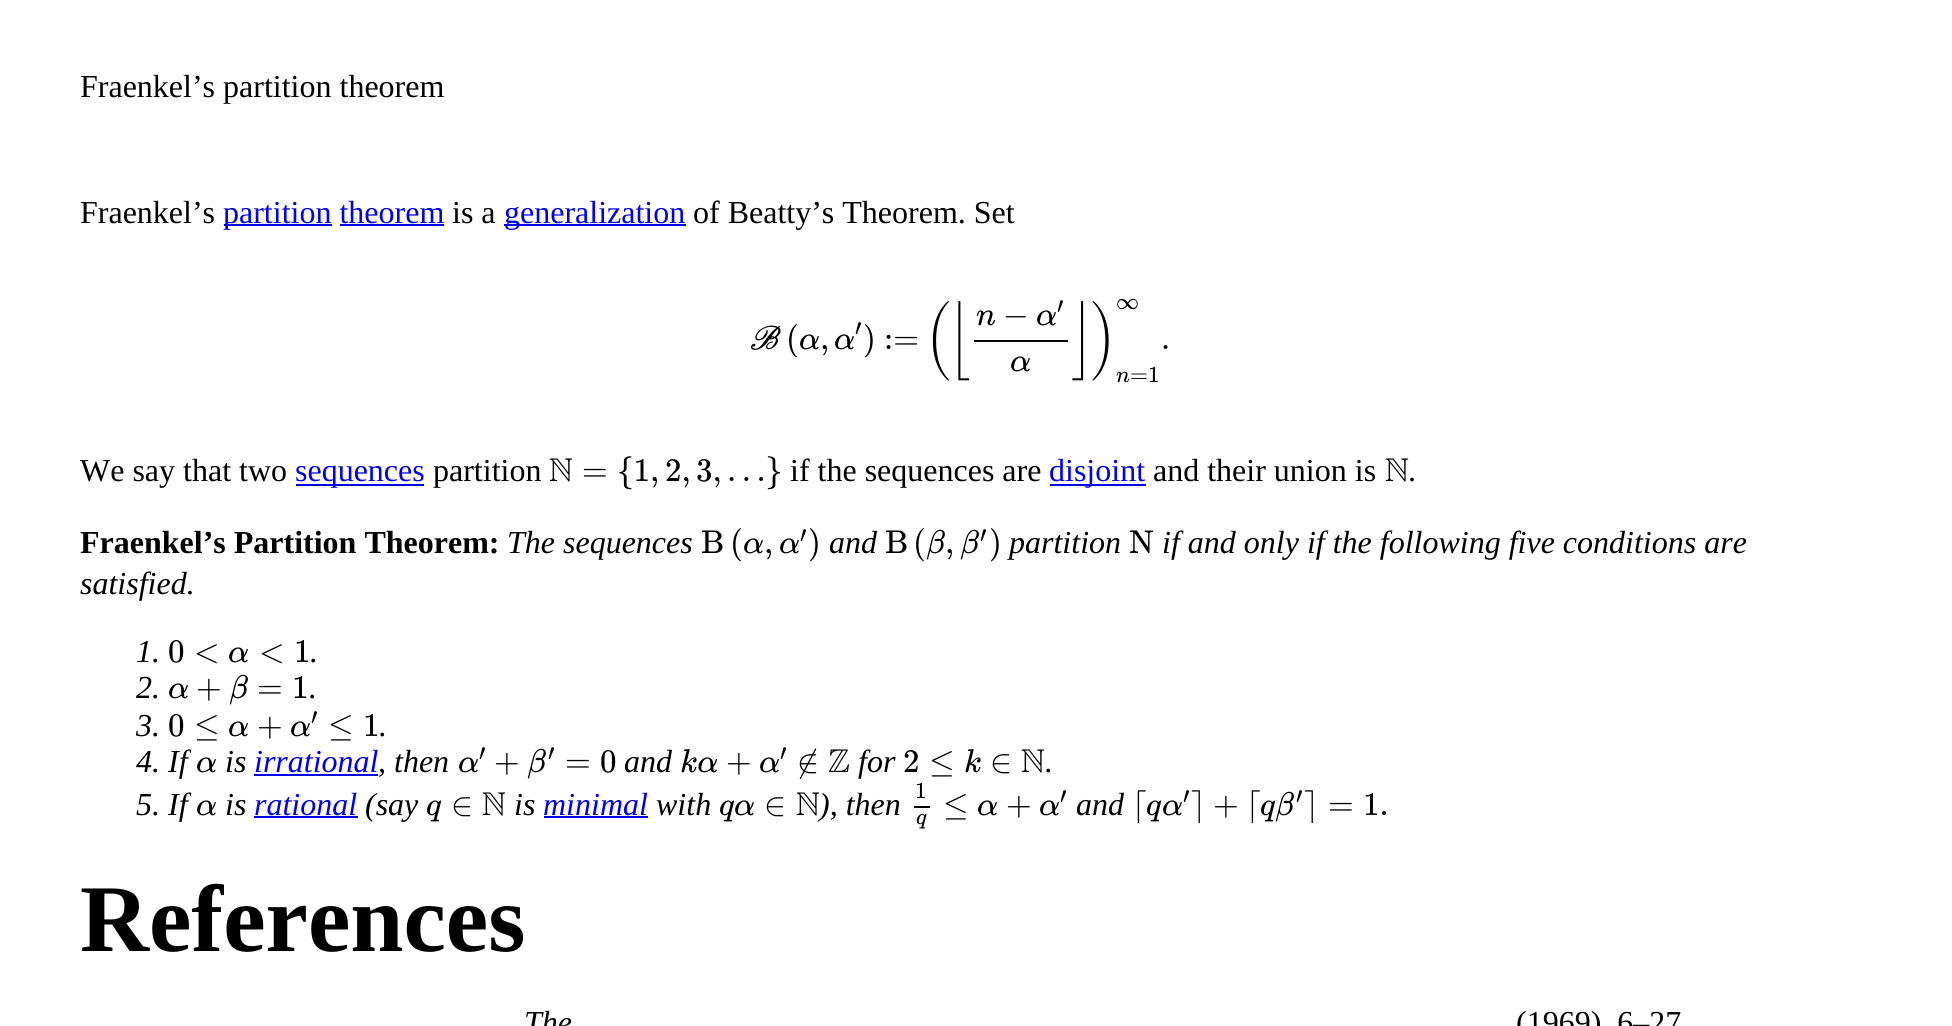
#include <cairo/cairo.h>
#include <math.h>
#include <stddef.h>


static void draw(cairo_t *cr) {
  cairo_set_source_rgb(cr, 1, 1, 1);
  cairo_paint(cr);
  cairo_set_source_rgb(cr, 0, 0, 238 / 255.0);
  cairo_rectangle(cr, 224, 224, 108, 2);
  cairo_fill(cr);
  cairo_rectangle(cr, 504, 224, 182, 2);
  cairo_fill(cr);
  cairo_rectangle(cr, 340, 224, 104, 2);
  cairo_fill(cr);
  cairo_set_source_rgb(cr, 0, 0, 0);
  cairo_rectangle(cr, 974, 340, 94, 2);
  cairo_fill(cr);
  cairo_set_source_rgb(cr, 0, 0, 238 / 255.0);
  cairo_rectangle(cr, 296, 484, 128, 2);
  cairo_fill(cr);
  cairo_rectangle(cr, 1050, 484, 96, 2);
  cairo_fill(cr);
  cairo_rectangle(cr, 254, 774, 124, 2);
  cairo_fill(cr);
  cairo_rectangle(cr, 254, 816, 104, 2);
  cairo_fill(cr);
  cairo_rectangle(cr, 544, 816, 104, 2);
  cairo_fill(cr);
  cairo_set_source_rgb(cr, 0, 0, 0);
  cairo_rectangle(cr, 914, 806, 16, 2);
  cairo_fill(cr);
  cairo_select_font_face(cr, "Liberation Serif", CAIRO_FONT_SLANT_NORMAL, CAIRO_FONT_WEIGHT_NORMAL);
  cairo_set_font_size(cr, 32);
  cairo_move_to(cr, 80, 97);
  cairo_show_text(cr, "Fraenkel’s partition theorem");
  cairo_move_to(cr, 80, 223);
  cairo_show_text(cr, "Fraenkel’s");
  cairo_set_source_rgb(cr, 0, 0, 238 / 255.0);
  cairo_move_to(cr, 223, 223);
  cairo_show_text(cr, "partition theorem");
  cairo_set_source_rgb(cr, 0, 0, 0);
  cairo_move_to(cr, 452, 223);
  cairo_show_text(cr, "is a");
  cairo_set_source_rgb(cr, 0, 0, 238 / 255.0);
  cairo_move_to(cr, 504, 223);
  cairo_show_text(cr, "generalization");
  cairo_set_source_rgb(cr, 0, 0, 0);
  cairo_move_to(cr, 693, 223);
  cairo_show_text(cr, "of Beatty’s Theorem. Set");
  cairo_select_font_face(cr, "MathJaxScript", CAIRO_FONT_SLANT_NORMAL, CAIRO_FONT_WEIGHT_NORMAL);
  cairo_set_font_size(cr, 33);
  cairo_move_to(cr, 750, 349);
  cairo_show_text(cr, "B");
  cairo_select_font_face(cr, "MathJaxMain", CAIRO_FONT_SLANT_NORMAL, CAIRO_FONT_WEIGHT_NORMAL);
  cairo_move_to(cr, 786, 349);
  cairo_show_text(cr, "(");
  cairo_select_font_face(cr, "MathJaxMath", CAIRO_FONT_SLANT_ITALIC, CAIRO_FONT_WEIGHT_NORMAL);
  cairo_move_to(cr, 799, 349);
  cairo_show_text(cr, "α");
  cairo_select_font_face(cr, "MathJaxMain", CAIRO_FONT_SLANT_NORMAL, CAIRO_FONT_WEIGHT_NORMAL);
  cairo_move_to(cr, 820, 349);
  cairo_show_text(cr, ",");
  cairo_set_font_size(cr, 23);
  cairo_move_to(cr, 855, 335);
  cairo_show_text(cr, "′");
  cairo_select_font_face(cr, "MathJaxMath", CAIRO_FONT_SLANT_ITALIC, CAIRO_FONT_WEIGHT_NORMAL);
  cairo_set_font_size(cr, 33);
  cairo_move_to(cr, 834, 349);
  cairo_show_text(cr, "α");
  cairo_select_font_face(cr, "MathJaxMain", CAIRO_FONT_SLANT_NORMAL, CAIRO_FONT_WEIGHT_NORMAL);
  cairo_move_to(cr, 863, 349);
  cairo_show_text(cr, ")");
  cairo_move_to(cr, 884, 349);
  cairo_show_text(cr, ":=");
  cairo_select_font_face(cr, "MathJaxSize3", CAIRO_FONT_SLANT_NORMAL, CAIRO_FONT_WEIGHT_NORMAL);
  cairo_move_to(cr, 926, 349);
  cairo_show_text(cr, "(⌊");
  cairo_select_font_face(cr, "MathJaxMath", CAIRO_FONT_SLANT_ITALIC, CAIRO_FONT_WEIGHT_NORMAL);
  cairo_move_to(cr, 976, 325);
  cairo_show_text(cr, "n");
  cairo_select_font_face(cr, "MathJaxMain", CAIRO_FONT_SLANT_NORMAL, CAIRO_FONT_WEIGHT_NORMAL);
  cairo_move_to(cr, 1003, 325);
  cairo_show_text(cr, "−");
  cairo_set_font_size(cr, 23);
  cairo_move_to(cr, 1057, 313);
  cairo_show_text(cr, "′");
  cairo_select_font_face(cr, "MathJaxMath", CAIRO_FONT_SLANT_ITALIC, CAIRO_FONT_WEIGHT_NORMAL);
  cairo_set_font_size(cr, 33);
  cairo_move_to(cr, 1036, 325);
  cairo_show_text(cr, "α");
  cairo_move_to(cr, 1010, 371);
  cairo_show_text(cr, "α");
  cairo_select_font_face(cr, "MathJaxSize3", CAIRO_FONT_SLANT_NORMAL, CAIRO_FONT_WEIGHT_NORMAL);
  cairo_move_to(cr, 1072, 349);
  cairo_show_text(cr, "⌋)");
  cairo_select_font_face(cr, "MathJaxMain", CAIRO_FONT_SLANT_NORMAL, CAIRO_FONT_WEIGHT_NORMAL);
  cairo_set_font_size(cr, 23);
  cairo_move_to(cr, 1116, 309);
  cairo_show_text(cr, "∞");
  cairo_select_font_face(cr, "MathJaxMath", CAIRO_FONT_SLANT_ITALIC, CAIRO_FONT_WEIGHT_NORMAL);
  cairo_move_to(cr, 1116, 382);
  cairo_show_text(cr, "n");
  cairo_select_font_face(cr, "MathJaxMain", CAIRO_FONT_SLANT_NORMAL, CAIRO_FONT_WEIGHT_NORMAL);
  cairo_move_to(cr, 1130, 382);
  cairo_show_text(cr, "=1");
  cairo_set_font_size(cr, 33);
  cairo_move_to(cr, 1161, 349);
  cairo_show_text(cr, ".");
  cairo_select_font_face(cr, "Liberation Serif", CAIRO_FONT_SLANT_NORMAL, CAIRO_FONT_WEIGHT_NORMAL);
  cairo_set_font_size(cr, 32);
  cairo_move_to(cr, 80, 481);
  cairo_show_text(cr, "We say that two");
  cairo_set_source_rgb(cr, 0, 0, 238 / 255.0);
  cairo_move_to(cr, 295, 481);
  cairo_show_text(cr, "sequences");
  cairo_set_source_rgb(cr, 0, 0, 0);
  cairo_move_to(cr, 433, 481);
  cairo_show_text(cr, "partition");
  cairo_select_font_face(cr, "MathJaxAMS", CAIRO_FONT_SLANT_NORMAL, CAIRO_FONT_WEIGHT_NORMAL);
  cairo_set_font_size(cr, 33);
  cairo_move_to(cr, 549, 481);
  cairo_show_text(cr, "N");
  cairo_select_font_face(cr, "MathJaxMain", CAIRO_FONT_SLANT_NORMAL, CAIRO_FONT_WEIGHT_NORMAL);
  cairo_move_to(cr, 582, 481);
  cairo_show_text(cr, "=");
  cairo_move_to(cr, 617, 481);
  cairo_show_text(cr, "{1,");
  cairo_move_to(cr, 665, 481);
  cairo_show_text(cr, "2,");
  cairo_move_to(cr, 696, 481);
  cairo_show_text(cr, "3,");
  cairo_move_to(cr, 727, 481);
  cairo_show_text(cr, "…}");
  cairo_select_font_face(cr, "Liberation Serif", CAIRO_FONT_SLANT_NORMAL, CAIRO_FONT_WEIGHT_NORMAL);
  cairo_set_font_size(cr, 32);
  cairo_move_to(cr, 790, 481);
  cairo_show_text(cr, "if the sequences are");
  cairo_set_source_rgb(cr, 0, 0, 238 / 255.0);
  cairo_move_to(cr, 1049, 481);
  cairo_show_text(cr, "disjoint");
  cairo_set_source_rgb(cr, 0, 0, 0);
  cairo_move_to(cr, 1153, 481);
  cairo_show_text(cr, "and their union is");
  cairo_select_font_face(cr, "MathJaxAMS", CAIRO_FONT_SLANT_NORMAL, CAIRO_FONT_WEIGHT_NORMAL);
  cairo_set_font_size(cr, 33);
  cairo_move_to(cr, 1385, 481);
  cairo_show_text(cr, "N");
  cairo_select_font_face(cr, "Liberation Serif", CAIRO_FONT_SLANT_NORMAL, CAIRO_FONT_WEIGHT_NORMAL);
  cairo_set_font_size(cr, 32);
  cairo_move_to(cr, 1408, 481);
  cairo_show_text(cr, ".");
  cairo_select_font_face(cr, "Liberation Serif", CAIRO_FONT_SLANT_ITALIC, CAIRO_FONT_WEIGHT_NORMAL);
  cairo_move_to(cr, 507, 553);
  cairo_show_text(cr, "The sequences");
  cairo_select_font_face(cr, "MathJaxMain", CAIRO_FONT_SLANT_NORMAL, CAIRO_FONT_WEIGHT_NORMAL);
  cairo_set_font_size(cr, 33);
  cairo_move_to(cr, 701, 553);
  cairo_show_text(cr, "B");
  cairo_move_to(cr, 730, 553);
  cairo_show_text(cr, "(");
  cairo_select_font_face(cr, "MathJaxMath", CAIRO_FONT_SLANT_ITALIC, CAIRO_FONT_WEIGHT_NORMAL);
  cairo_move_to(cr, 743, 553);
  cairo_show_text(cr, "α");
  cairo_select_font_face(cr, "MathJaxMain", CAIRO_FONT_SLANT_NORMAL, CAIRO_FONT_WEIGHT_NORMAL);
  cairo_move_to(cr, 764, 553);
  cairo_show_text(cr, ",");
  cairo_set_font_size(cr, 23);
  cairo_move_to(cr, 800, 542);
  cairo_show_text(cr, "′");
  cairo_select_font_face(cr, "MathJaxMath", CAIRO_FONT_SLANT_ITALIC, CAIRO_FONT_WEIGHT_NORMAL);
  cairo_set_font_size(cr, 33);
  cairo_move_to(cr, 779, 553);
  cairo_show_text(cr, "α");
  cairo_select_font_face(cr, "MathJaxMain", CAIRO_FONT_SLANT_NORMAL, CAIRO_FONT_WEIGHT_NORMAL);
  cairo_move_to(cr, 808, 553);
  cairo_show_text(cr, ")");
  cairo_select_font_face(cr, "Liberation Serif", CAIRO_FONT_SLANT_ITALIC, CAIRO_FONT_WEIGHT_NORMAL);
  cairo_set_font_size(cr, 32);
  cairo_move_to(cr, 829, 553);
  cairo_show_text(cr, "and");
  cairo_select_font_face(cr, "MathJaxMain", CAIRO_FONT_SLANT_NORMAL, CAIRO_FONT_WEIGHT_NORMAL);
  cairo_set_font_size(cr, 33);
  cairo_move_to(cr, 885, 553);
  cairo_show_text(cr, "B");
  cairo_move_to(cr, 913, 553);
  cairo_show_text(cr, "(");
  cairo_select_font_face(cr, "MathJaxMath", CAIRO_FONT_SLANT_ITALIC, CAIRO_FONT_WEIGHT_NORMAL);
  cairo_move_to(cr, 926, 553);
  cairo_show_text(cr, "β");
  cairo_select_font_face(cr, "MathJaxMain", CAIRO_FONT_SLANT_NORMAL, CAIRO_FONT_WEIGHT_NORMAL);
  cairo_move_to(cr, 945, 553);
  cairo_show_text(cr, ",");
  cairo_select_font_face(cr, "MathJaxMath", CAIRO_FONT_SLANT_ITALIC, CAIRO_FONT_WEIGHT_NORMAL);
  cairo_move_to(cr, 960, 553);
  cairo_show_text(cr, "β");
  cairo_select_font_face(cr, "MathJaxMain", CAIRO_FONT_SLANT_NORMAL, CAIRO_FONT_WEIGHT_NORMAL);
  cairo_set_font_size(cr, 23);
  cairo_move_to(cr, 980, 542);
  cairo_show_text(cr, "′");
  cairo_set_font_size(cr, 33);
  cairo_move_to(cr, 989, 553);
  cairo_show_text(cr, ")");
  cairo_select_font_face(cr, "Liberation Serif", CAIRO_FONT_SLANT_ITALIC, CAIRO_FONT_WEIGHT_NORMAL);
  cairo_set_font_size(cr, 32);
  cairo_move_to(cr, 1009, 553);
  cairo_show_text(cr, "partition");
  cairo_select_font_face(cr, "MathJaxMain", CAIRO_FONT_SLANT_NORMAL, CAIRO_FONT_WEIGHT_NORMAL);
  cairo_set_font_size(cr, 33);
  cairo_move_to(cr, 1129, 553);
  cairo_show_text(cr, "N");
  cairo_select_font_face(cr, "Liberation Serif", CAIRO_FONT_SLANT_ITALIC, CAIRO_FONT_WEIGHT_NORMAL);
  cairo_set_font_size(cr, 32);
  cairo_move_to(cr, 1162, 553);
  cairo_show_text(cr, "if and only if the following five conditions are");
  cairo_move_to(cr, 80, 594);
  cairo_show_text(cr, "satisfied.");
  cairo_select_font_face(cr, "Liberation Serif", CAIRO_FONT_SLANT_NORMAL, CAIRO_FONT_WEIGHT_BOLD);
  cairo_move_to(cr, 80, 553);
  cairo_show_text(cr, "Fraenkel’s Partition Theorem:");
  cairo_select_font_face(cr, "Liberation Serif", CAIRO_FONT_SLANT_ITALIC, CAIRO_FONT_WEIGHT_NORMAL);
  cairo_move_to(cr, 136, 662);
  cairo_show_text(cr, "1.");
  cairo_select_font_face(cr, "MathJaxMain", CAIRO_FONT_SLANT_NORMAL, CAIRO_FONT_WEIGHT_NORMAL);
  cairo_set_font_size(cr, 33);
  cairo_move_to(cr, 168, 662);
  cairo_show_text(cr, "0");
  cairo_move_to(cr, 194, 662);
  cairo_show_text(cr, "<");
  cairo_select_font_face(cr, "MathJaxMath", CAIRO_FONT_SLANT_ITALIC, CAIRO_FONT_WEIGHT_NORMAL);
  cairo_move_to(cr, 228, 662);
  cairo_show_text(cr, "α");
  cairo_select_font_face(cr, "MathJaxMain", CAIRO_FONT_SLANT_NORMAL, CAIRO_FONT_WEIGHT_NORMAL);
  cairo_move_to(cr, 259, 662);
  cairo_show_text(cr, "<");
  cairo_move_to(cr, 294, 662);
  cairo_show_text(cr, "1");
  cairo_select_font_face(cr, "Liberation Serif", CAIRO_FONT_SLANT_ITALIC, CAIRO_FONT_WEIGHT_NORMAL);
  cairo_set_font_size(cr, 32);
  cairo_move_to(cr, 310, 662);
  cairo_show_text(cr, ".");
  cairo_move_to(cr, 136, 698);
  cairo_show_text(cr, "2.");
  cairo_select_font_face(cr, "MathJaxMath", CAIRO_FONT_SLANT_ITALIC, CAIRO_FONT_WEIGHT_NORMAL);
  cairo_set_font_size(cr, 33);
  cairo_move_to(cr, 168, 698);
  cairo_show_text(cr, "α");
  cairo_select_font_face(cr, "MathJaxMain", CAIRO_FONT_SLANT_NORMAL, CAIRO_FONT_WEIGHT_NORMAL);
  cairo_move_to(cr, 196, 698);
  cairo_show_text(cr, "+");
  cairo_select_font_face(cr, "MathJaxMath", CAIRO_FONT_SLANT_ITALIC, CAIRO_FONT_WEIGHT_NORMAL);
  cairo_move_to(cr, 229, 698);
  cairo_show_text(cr, "β");
  cairo_select_font_face(cr, "MathJaxMain", CAIRO_FONT_SLANT_NORMAL, CAIRO_FONT_WEIGHT_NORMAL);
  cairo_move_to(cr, 257, 698);
  cairo_show_text(cr, "=");
  cairo_move_to(cr, 292, 698);
  cairo_show_text(cr, "1");
  cairo_select_font_face(cr, "Liberation Serif", CAIRO_FONT_SLANT_ITALIC, CAIRO_FONT_WEIGHT_NORMAL);
  cairo_set_font_size(cr, 32);
  cairo_move_to(cr, 309, 698);
  cairo_show_text(cr, ".");
  cairo_move_to(cr, 136, 736);
  cairo_show_text(cr, "3.");
  cairo_select_font_face(cr, "MathJaxMain", CAIRO_FONT_SLANT_NORMAL, CAIRO_FONT_WEIGHT_NORMAL);
  cairo_set_font_size(cr, 33);
  cairo_move_to(cr, 168, 736);
  cairo_show_text(cr, "0");
  cairo_move_to(cr, 194, 736);
  cairo_show_text(cr, "≤");
  cairo_select_font_face(cr, "MathJaxMath", CAIRO_FONT_SLANT_ITALIC, CAIRO_FONT_WEIGHT_NORMAL);
  cairo_move_to(cr, 228, 736);
  cairo_show_text(cr, "α");
  cairo_select_font_face(cr, "MathJaxMain", CAIRO_FONT_SLANT_NORMAL, CAIRO_FONT_WEIGHT_NORMAL);
  cairo_move_to(cr, 257, 736);
  cairo_show_text(cr, "+");
  cairo_set_font_size(cr, 23);
  cairo_move_to(cr, 311, 724);
  cairo_show_text(cr, "′");
  cairo_select_font_face(cr, "MathJaxMath", CAIRO_FONT_SLANT_ITALIC, CAIRO_FONT_WEIGHT_NORMAL);
  cairo_set_font_size(cr, 33);
  cairo_move_to(cr, 290, 736);
  cairo_show_text(cr, "α");
  cairo_select_font_face(cr, "MathJaxMain", CAIRO_FONT_SLANT_NORMAL, CAIRO_FONT_WEIGHT_NORMAL);
  cairo_move_to(cr, 328, 736);
  cairo_show_text(cr, "≤");
  cairo_move_to(cr, 363, 736);
  cairo_show_text(cr, "1");
  cairo_select_font_face(cr, "Liberation Serif", CAIRO_FONT_SLANT_ITALIC, CAIRO_FONT_WEIGHT_NORMAL);
  cairo_set_font_size(cr, 32);
  cairo_move_to(cr, 379, 736);
  cairo_show_text(cr, ".");
  cairo_move_to(cr, 136, 772);
  cairo_show_text(cr, "4. If");
  cairo_select_font_face(cr, "MathJaxMath", CAIRO_FONT_SLANT_ITALIC, CAIRO_FONT_WEIGHT_NORMAL);
  cairo_set_font_size(cr, 33);
  cairo_move_to(cr, 196, 772);
  cairo_show_text(cr, "α");
  cairo_select_font_face(cr, "Liberation Serif", CAIRO_FONT_SLANT_ITALIC, CAIRO_FONT_WEIGHT_NORMAL);
  cairo_set_font_size(cr, 32);
  cairo_move_to(cr, 225, 772);
  cairo_show_text(cr, "is");
  cairo_set_source_rgb(cr, 0, 0, 238 / 255.0);
  cairo_move_to(cr, 254, 772);
  cairo_show_text(cr, "irrational");
  cairo_set_source_rgb(cr, 0, 0, 0);
  cairo_move_to(cr, 378, 772);
  cairo_show_text(cr, ", then");
  cairo_select_font_face(cr, "MathJaxMain", CAIRO_FONT_SLANT_NORMAL, CAIRO_FONT_WEIGHT_NORMAL);
  cairo_set_font_size(cr, 23);
  cairo_move_to(cr, 479, 760);
  cairo_show_text(cr, "′");
  cairo_select_font_face(cr, "MathJaxMath", CAIRO_FONT_SLANT_ITALIC, CAIRO_FONT_WEIGHT_NORMAL);
  cairo_set_font_size(cr, 33);
  cairo_move_to(cr, 458, 772);
  cairo_show_text(cr, "α");
  cairo_select_font_face(cr, "MathJaxMain", CAIRO_FONT_SLANT_NORMAL, CAIRO_FONT_WEIGHT_NORMAL);
  cairo_move_to(cr, 494, 772);
  cairo_show_text(cr, "+");
  cairo_select_font_face(cr, "MathJaxMath", CAIRO_FONT_SLANT_ITALIC, CAIRO_FONT_WEIGHT_NORMAL);
  cairo_move_to(cr, 527, 772);
  cairo_show_text(cr, "β");
  cairo_select_font_face(cr, "MathJaxMain", CAIRO_FONT_SLANT_NORMAL, CAIRO_FONT_WEIGHT_NORMAL);
  cairo_set_font_size(cr, 23);
  cairo_move_to(cr, 548, 760);
  cairo_show_text(cr, "′");
  cairo_set_font_size(cr, 33);
  cairo_move_to(cr, 565, 772);
  cairo_show_text(cr, "=");
  cairo_move_to(cr, 600, 772);
  cairo_show_text(cr, "0");
  cairo_select_font_face(cr, "Liberation Serif", CAIRO_FONT_SLANT_ITALIC, CAIRO_FONT_WEIGHT_NORMAL);
  cairo_set_font_size(cr, 32);
  cairo_move_to(cr, 624, 772);
  cairo_show_text(cr, "and");
  cairo_select_font_face(cr, "MathJaxMath", CAIRO_FONT_SLANT_ITALIC, CAIRO_FONT_WEIGHT_NORMAL);
  cairo_set_font_size(cr, 33);
  cairo_move_to(cr, 680, 772);
  cairo_show_text(cr, "kα");
  cairo_select_font_face(cr, "MathJaxMain", CAIRO_FONT_SLANT_NORMAL, CAIRO_FONT_WEIGHT_NORMAL);
  cairo_move_to(cr, 726, 772);
  cairo_show_text(cr, "+");
  cairo_set_font_size(cr, 23);
  cairo_move_to(cr, 780, 760);
  cairo_show_text(cr, "′");
  cairo_select_font_face(cr, "MathJaxMath", CAIRO_FONT_SLANT_ITALIC, CAIRO_FONT_WEIGHT_NORMAL);
  cairo_set_font_size(cr, 33);
  cairo_move_to(cr, 759, 772);
  cairo_show_text(cr, "α");
  cairo_select_font_face(cr, "MathJaxMain", CAIRO_FONT_SLANT_NORMAL, CAIRO_FONT_WEIGHT_NORMAL);
  cairo_move_to(cr, 797, 772);
  cairo_show_text(cr, "∉");
  cairo_select_font_face(cr, "MathJaxAMS", CAIRO_FONT_SLANT_NORMAL, CAIRO_FONT_WEIGHT_NORMAL);
  cairo_move_to(cr, 828, 772);
  cairo_show_text(cr, "Z");
  cairo_select_font_face(cr, "Liberation Serif", CAIRO_FONT_SLANT_ITALIC, CAIRO_FONT_WEIGHT_NORMAL);
  cairo_set_font_size(cr, 32);
  cairo_move_to(cr, 858, 772);
  cairo_show_text(cr, "for");
  cairo_select_font_face(cr, "MathJaxMain", CAIRO_FONT_SLANT_NORMAL, CAIRO_FONT_WEIGHT_NORMAL);
  cairo_set_font_size(cr, 33);
  cairo_move_to(cr, 903, 772);
  cairo_show_text(cr, "2");
  cairo_move_to(cr, 929, 772);
  cairo_show_text(cr, "≤");
  cairo_select_font_face(cr, "MathJaxMath", CAIRO_FONT_SLANT_ITALIC, CAIRO_FONT_WEIGHT_NORMAL);
  cairo_move_to(cr, 964, 772);
  cairo_show_text(cr, "k");
  cairo_select_font_face(cr, "MathJaxMain", CAIRO_FONT_SLANT_NORMAL, CAIRO_FONT_WEIGHT_NORMAL);
  cairo_move_to(cr, 990, 772);
  cairo_show_text(cr, "∈");
  cairo_select_font_face(cr, "MathJaxAMS", CAIRO_FONT_SLANT_NORMAL, CAIRO_FONT_WEIGHT_NORMAL);
  cairo_move_to(cr, 1021, 772);
  cairo_show_text(cr, "N");
  cairo_select_font_face(cr, "Liberation Serif", CAIRO_FONT_SLANT_ITALIC, CAIRO_FONT_WEIGHT_NORMAL);
  cairo_set_font_size(cr, 32);
  cairo_move_to(cr, 1045, 772);
  cairo_show_text(cr, ".");
  cairo_move_to(cr, 136, 815);
  cairo_show_text(cr, "5. If");
  cairo_select_font_face(cr, "MathJaxMath", CAIRO_FONT_SLANT_ITALIC, CAIRO_FONT_WEIGHT_NORMAL);
  cairo_set_font_size(cr, 33);
  cairo_move_to(cr, 196, 815);
  cairo_show_text(cr, "α");
  cairo_select_font_face(cr, "Liberation Serif", CAIRO_FONT_SLANT_ITALIC, CAIRO_FONT_WEIGHT_NORMAL);
  cairo_set_font_size(cr, 32);
  cairo_move_to(cr, 225, 815);
  cairo_show_text(cr, "is");
  cairo_set_source_rgb(cr, 0, 0, 238 / 255.0);
  cairo_move_to(cr, 254, 815);
  cairo_show_text(cr, "rational");
  cairo_set_source_rgb(cr, 0, 0, 0);
  cairo_move_to(cr, 365, 815);
  cairo_show_text(cr, "(say");
  cairo_select_font_face(cr, "MathJaxMath", CAIRO_FONT_SLANT_ITALIC, CAIRO_FONT_WEIGHT_NORMAL);
  cairo_set_font_size(cr, 33);
  cairo_move_to(cr, 426, 815);
  cairo_show_text(cr, "q");
  cairo_select_font_face(cr, "MathJaxMain", CAIRO_FONT_SLANT_NORMAL, CAIRO_FONT_WEIGHT_NORMAL);
  cairo_move_to(cr, 451, 815);
  cairo_show_text(cr, "∈");
  cairo_select_font_face(cr, "MathJaxAMS", CAIRO_FONT_SLANT_NORMAL, CAIRO_FONT_WEIGHT_NORMAL);
  cairo_move_to(cr, 482, 815);
  cairo_show_text(cr, "N");
  cairo_select_font_face(cr, "Liberation Serif", CAIRO_FONT_SLANT_ITALIC, CAIRO_FONT_WEIGHT_NORMAL);
  cairo_set_font_size(cr, 32);
  cairo_move_to(cr, 514, 815);
  cairo_show_text(cr, "is");
  cairo_set_source_rgb(cr, 0, 0, 238 / 255.0);
  cairo_move_to(cr, 543, 815);
  cairo_show_text(cr, "minimal");
  cairo_set_source_rgb(cr, 0, 0, 0);
  cairo_move_to(cr, 656, 815);
  cairo_show_text(cr, "with");
  cairo_select_font_face(cr, "MathJaxMath", CAIRO_FONT_SLANT_ITALIC, CAIRO_FONT_WEIGHT_NORMAL);
  cairo_set_font_size(cr, 33);
  cairo_move_to(cr, 719, 815);
  cairo_show_text(cr, "q");
  cairo_move_to(cr, 734, 815);
  cairo_show_text(cr, "α");
  cairo_select_font_face(cr, "MathJaxMain", CAIRO_FONT_SLANT_NORMAL, CAIRO_FONT_WEIGHT_NORMAL);
  cairo_move_to(cr, 764, 815);
  cairo_show_text(cr, "∈");
  cairo_select_font_face(cr, "Liberation Serif", CAIRO_FONT_SLANT_ITALIC, CAIRO_FONT_WEIGHT_NORMAL);
  cairo_set_font_size(cr, 32);
  cairo_move_to(cr, 819, 815);
  cairo_show_text(cr, "), then");
  cairo_select_font_face(cr, "MathJaxAMS", CAIRO_FONT_SLANT_NORMAL, CAIRO_FONT_WEIGHT_NORMAL);
  cairo_set_font_size(cr, 33);
  cairo_move_to(cr, 796, 815);
  cairo_show_text(cr, "N");
  cairo_select_font_face(cr, "MathJaxMain", CAIRO_FONT_SLANT_NORMAL, CAIRO_FONT_WEIGHT_NORMAL);
  cairo_set_font_size(cr, 23);
  cairo_move_to(cr, 915, 798);
  cairo_show_text(cr, "1");
  cairo_select_font_face(cr, "MathJaxMath", CAIRO_FONT_SLANT_ITALIC, CAIRO_FONT_WEIGHT_NORMAL);
  cairo_move_to(cr, 916, 824);
  cairo_show_text(cr, "q");
  cairo_select_font_face(cr, "MathJaxMain", CAIRO_FONT_SLANT_NORMAL, CAIRO_FONT_WEIGHT_NORMAL);
  cairo_set_font_size(cr, 33);
  cairo_move_to(cr, 943, 815);
  cairo_show_text(cr, "≤");
  cairo_select_font_face(cr, "MathJaxMath", CAIRO_FONT_SLANT_ITALIC, CAIRO_FONT_WEIGHT_NORMAL);
  cairo_move_to(cr, 977, 815);
  cairo_show_text(cr, "α");
  cairo_select_font_face(cr, "MathJaxMain", CAIRO_FONT_SLANT_NORMAL, CAIRO_FONT_WEIGHT_NORMAL);
  cairo_move_to(cr, 1006, 815);
  cairo_show_text(cr, "+");
  cairo_set_font_size(cr, 23);
  cairo_move_to(cr, 1060, 803);
  cairo_show_text(cr, "′");
  cairo_select_font_face(cr, "MathJaxMath", CAIRO_FONT_SLANT_ITALIC, CAIRO_FONT_WEIGHT_NORMAL);
  cairo_set_font_size(cr, 33);
  cairo_move_to(cr, 1039, 815);
  cairo_show_text(cr, "α");
  cairo_select_font_face(cr, "Liberation Serif", CAIRO_FONT_SLANT_ITALIC, CAIRO_FONT_WEIGHT_NORMAL);
  cairo_set_font_size(cr, 32);
  cairo_move_to(cr, 1076, 815);
  cairo_show_text(cr, "and");
  cairo_select_font_face(cr, "MathJaxMain", CAIRO_FONT_SLANT_NORMAL, CAIRO_FONT_WEIGHT_NORMAL);
  cairo_set_font_size(cr, 33);
  cairo_move_to(cr, 1132, 815);
  cairo_show_text(cr, "⌈");
  cairo_select_font_face(cr, "MathJaxMath", CAIRO_FONT_SLANT_ITALIC, CAIRO_FONT_WEIGHT_NORMAL);
  cairo_move_to(cr, 1146, 815);
  cairo_show_text(cr, "q");
  cairo_select_font_face(cr, "MathJaxMain", CAIRO_FONT_SLANT_NORMAL, CAIRO_FONT_WEIGHT_NORMAL);
  cairo_set_font_size(cr, 23);
  cairo_move_to(cr, 1183, 803);
  cairo_show_text(cr, "′");
  cairo_select_font_face(cr, "MathJaxMath", CAIRO_FONT_SLANT_ITALIC, CAIRO_FONT_WEIGHT_NORMAL);
  cairo_set_font_size(cr, 33);
  cairo_move_to(cr, 1162, 815);
  cairo_show_text(cr, "α");
  cairo_select_font_face(cr, "MathJaxMain", CAIRO_FONT_SLANT_NORMAL, CAIRO_FONT_WEIGHT_NORMAL);
  cairo_move_to(cr, 1191, 815);
  cairo_show_text(cr, "⌉");
  cairo_move_to(cr, 1213, 815);
  cairo_show_text(cr, "+");
  cairo_move_to(cr, 1246, 815);
  cairo_show_text(cr, "⌈");
  cairo_select_font_face(cr, "MathJaxMath", CAIRO_FONT_SLANT_ITALIC, CAIRO_FONT_WEIGHT_NORMAL);
  cairo_move_to(cr, 1260, 815);
  cairo_show_text(cr, "q");
  cairo_move_to(cr, 1275, 815);
  cairo_show_text(cr, "β");
  cairo_select_font_face(cr, "MathJaxMain", CAIRO_FONT_SLANT_NORMAL, CAIRO_FONT_WEIGHT_NORMAL);
  cairo_set_font_size(cr, 23);
  cairo_move_to(cr, 1296, 803);
  cairo_show_text(cr, "′");
  cairo_set_font_size(cr, 33);
  cairo_move_to(cr, 1304, 815);
  cairo_show_text(cr, "⌉");
  cairo_move_to(cr, 1328, 815);
  cairo_show_text(cr, "=");
  cairo_move_to(cr, 1363, 815);
  cairo_show_text(cr, "1.");
  cairo_select_font_face(cr, "Liberation Serif", CAIRO_FONT_SLANT_NORMAL, CAIRO_FONT_WEIGHT_BOLD);
  cairo_set_font_size(cr, 95.5);
  cairo_move_to(cr, 80, 951);
  cairo_show_text(cr, "References");
  cairo_select_font_face(cr, "Liberation Serif", CAIRO_FONT_SLANT_ITALIC, CAIRO_FONT_WEIGHT_NORMAL);
  cairo_set_font_size(cr, 32);
  cairo_move_to(cr, 524, 1033);
  cairo_show_text(cr, "The");
  cairo_select_font_face(cr, "Liberation Serif", CAIRO_FONT_SLANT_NORMAL, CAIRO_FONT_WEIGHT_NORMAL);
  cairo_move_to(cr, 1516, 1033);
  cairo_show_text(cr, "(1969), 6–27");
}

int main(void) {
  cairo_surface_t *surface = cairo_image_surface_create(CAIRO_FORMAT_RGB24, 1952, 1026);
  cairo_t *cr = cairo_create(surface);
  cairo_font_options_t *options = cairo_font_options_create();
  cairo_font_options_set_hint_metrics(options, CAIRO_HINT_METRICS_OFF);
  cairo_font_options_set_hint_style(options, CAIRO_HINT_STYLE_NONE);
  cairo_set_font_options(cr, options);
  cairo_set_miter_limit(cr, 4);
  draw(cr);
  cairo_surface_write_to_png(surface, "out.png");
  cairo_font_options_destroy(options);
  cairo_destroy(cr);
  cairo_surface_destroy(surface);
  return 0;
}
